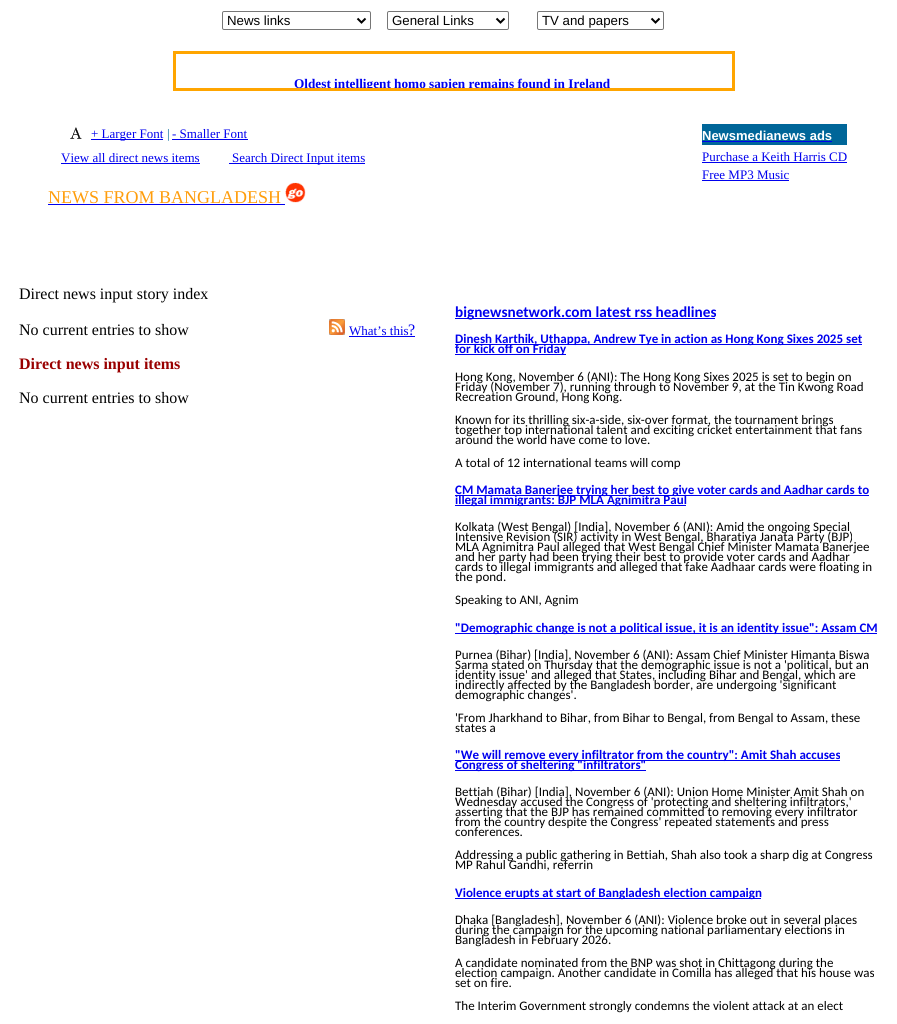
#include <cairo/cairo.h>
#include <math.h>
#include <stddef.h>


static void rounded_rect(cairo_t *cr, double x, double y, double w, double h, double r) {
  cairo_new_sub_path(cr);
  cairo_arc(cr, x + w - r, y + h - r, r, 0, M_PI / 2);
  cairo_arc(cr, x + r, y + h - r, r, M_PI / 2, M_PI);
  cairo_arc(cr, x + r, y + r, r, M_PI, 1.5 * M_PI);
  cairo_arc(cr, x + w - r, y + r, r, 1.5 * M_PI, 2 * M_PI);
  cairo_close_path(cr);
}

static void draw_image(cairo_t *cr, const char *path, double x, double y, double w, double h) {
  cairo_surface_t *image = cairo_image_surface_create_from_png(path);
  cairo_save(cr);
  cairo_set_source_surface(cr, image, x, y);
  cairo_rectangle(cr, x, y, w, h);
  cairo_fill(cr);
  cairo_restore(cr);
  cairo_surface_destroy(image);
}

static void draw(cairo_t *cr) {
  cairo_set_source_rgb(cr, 1, 1, 1);
  cairo_paint(cr);
  rounded_rect(cr, 222.5, 11.5, 148, 18, 1.5);
  cairo_set_source_rgb(cr, 118 / 255.0, 118 / 255.0, 118 / 255.0);
  cairo_set_line_width(cr, 1);
  cairo_stroke(cr);
  cairo_new_path(cr);
  cairo_move_to(cr, 357.5, 18.5);
  cairo_line_to(cr, 361.5, 22.5);
  cairo_line_to(cr, 365.5, 18.5);
  cairo_set_source_rgb(cr, 0, 0, 0);
  cairo_set_line_width(cr, 2);
  cairo_stroke(cr);
  rounded_rect(cr, 387.5, 11.5, 121, 18, 1.5);
  cairo_set_source_rgb(cr, 118 / 255.0, 118 / 255.0, 118 / 255.0);
  cairo_set_line_width(cr, 1);
  cairo_stroke(cr);
  cairo_new_path(cr);
  cairo_move_to(cr, 496.5, 18.5);
  cairo_line_to(cr, 500.5, 22.5);
  cairo_line_to(cr, 504.5, 18.5);
  cairo_set_source_rgb(cr, 0, 0, 0);
  cairo_set_line_width(cr, 2);
  cairo_stroke(cr);
  rounded_rect(cr, 537.5, 11.5, 126, 18, 1.5);
  cairo_set_source_rgb(cr, 118 / 255.0, 118 / 255.0, 118 / 255.0);
  cairo_set_line_width(cr, 1);
  cairo_stroke(cr);
  cairo_new_path(cr);
  cairo_move_to(cr, 651.5, 18.5);
  cairo_line_to(cr, 655.5, 22.5);
  cairo_line_to(cr, 659.5, 18.5);
  cairo_set_source_rgb(cr, 0, 0, 0);
  cairo_set_line_width(cr, 2);
  cairo_stroke(cr);
  cairo_rectangle(cr, 174.5, 52.5, 559, 37);
  cairo_set_source_rgb(cr, 1, 165 / 255.0, 0);
  cairo_set_line_width(cr, 3);
  cairo_stroke(cr);
  draw_image(cr, "images/1.png", 70, 127, 12, 12);
  cairo_set_source_rgb(cr, 0, 0, 238 / 255.0);
  cairo_rectangle(cr, 91, 139, 72, 1);
  cairo_fill(cr);
  cairo_rectangle(cr, 172, 139, 76, 1);
  cairo_fill(cr);
  cairo_rectangle(cr, 61, 163, 139, 1);
  cairo_fill(cr);
  cairo_rectangle(cr, 229, 163, 136, 1);
  cairo_fill(cr);
  cairo_set_source_rgb(cr, 0, 102 / 255.0, 153 / 255.0);
  cairo_rectangle(cr, 702, 124, 145, 21);
  cairo_fill(cr);
  cairo_set_source_rgb(cr, 0, 0, 238 / 255.0);
  cairo_rectangle(cr, 702, 141, 130, 1);
  cairo_fill(cr);
  cairo_rectangle(cr, 702, 162, 145, 1);
  cairo_fill(cr);
  cairo_rectangle(cr, 702, 180, 87, 1);
  cairo_fill(cr);
  cairo_rectangle(cr, 48, 204, 237, 1);
  cairo_fill(cr);
  draw_image(cr, "images/2.png", 285, 182, 21, 21);
  draw_image(cr, "images/3.png", 329, 319, 16, 16);
  cairo_rectangle(cr, 349, 336, 66, 1);
  cairo_fill(cr);
  cairo_rectangle(cr, 455, 318, 260, 1);
  cairo_fill(cr);
  cairo_rectangle(cr, 455, 344, 407, 1);
  cairo_fill(cr);
  cairo_rectangle(cr, 455, 354, 111, 1);
  cairo_fill(cr);
  cairo_rectangle(cr, 455, 495, 414, 1);
  cairo_fill(cr);
  cairo_rectangle(cr, 455, 505, 231, 1);
  cairo_fill(cr);
  cairo_rectangle(cr, 455, 633, 422, 1);
  cairo_fill(cr);
  cairo_rectangle(cr, 455, 760, 385, 1);
  cairo_fill(cr);
  cairo_rectangle(cr, 455, 770, 191, 1);
  cairo_fill(cr);
  cairo_rectangle(cr, 455, 898, 306, 1);
  cairo_fill(cr);
  cairo_select_font_face(cr, "Liberation Sans", CAIRO_FONT_SLANT_NORMAL, CAIRO_FONT_WEIGHT_NORMAL);
  cairo_set_font_size(cr, 13.25);
  cairo_set_source_rgb(cr, 0, 0, 0);
  cairo_move_to(cr, 227, 25);
  cairo_show_text(cr, "News links");
  cairo_move_to(cr, 392, 25);
  cairo_show_text(cr, "General Links");
  cairo_move_to(cr, 542, 25);
  cairo_show_text(cr, "TV and papers");
  cairo_save(cr);
  cairo_rectangle(cr, 176, 54, 556, 34);
  cairo_clip(cr);
  cairo_select_font_face(cr, "Liberation Serif", CAIRO_FONT_SLANT_NORMAL, CAIRO_FONT_WEIGHT_BOLD);
  cairo_set_source_rgb(cr, 0, 0, 238 / 255.0);
  cairo_move_to(cr, 294, 88);
  cairo_show_text(cr, "Oldest intelligent homo sapien remains found in Ireland");
  cairo_restore(cr);
  cairo_select_font_face(cr, "Liberation Serif", CAIRO_FONT_SLANT_NORMAL, CAIRO_FONT_WEIGHT_NORMAL);
  cairo_set_font_size(cr, 13);
  cairo_set_source_rgb(cr, 0, 0, 238 / 255.0);
  cairo_move_to(cr, 91, 138);
  cairo_show_text(cr, "+ Larger Font");
  cairo_set_source_rgb(cr, 0, 102 / 255.0, 153 / 255.0);
  cairo_move_to(cr, 167, 138);
  cairo_show_text(cr, "|");
  cairo_set_source_rgb(cr, 0, 0, 238 / 255.0);
  cairo_move_to(cr, 172, 138);
  cairo_show_text(cr, "- Smaller Font");
  cairo_move_to(cr, 61, 162);
  cairo_show_text(cr, "View all direct news items");
  cairo_move_to(cr, 232, 162);
  cairo_show_text(cr, "Search Direct Input items");
  cairo_select_font_face(cr, "Liberation Sans", CAIRO_FONT_SLANT_NORMAL, CAIRO_FONT_WEIGHT_BOLD);
  cairo_set_source_rgb(cr, 1, 1, 1);
  cairo_move_to(cr, 702, 140);
  cairo_show_text(cr, "Newsmedianews ads");
  cairo_select_font_face(cr, "Liberation Serif", CAIRO_FONT_SLANT_NORMAL, CAIRO_FONT_WEIGHT_NORMAL);
  cairo_set_source_rgb(cr, 0, 0, 238 / 255.0);
  cairo_move_to(cr, 702, 161);
  cairo_show_text(cr, "Purchase a Keith Harris CD");
  cairo_move_to(cr, 702, 179);
  cairo_show_text(cr, "Free MP3 Music");
  cairo_set_font_size(cr, 18);
  cairo_set_source_rgb(cr, 1, 157 / 255.0, 11 / 255.0);
  cairo_move_to(cr, 48, 203);
  cairo_show_text(cr, "NEWS FROM BANGLADESH");
  cairo_set_font_size(cr, 16);
  cairo_set_source_rgb(cr, 0, 0, 0);
  cairo_move_to(cr, 19, 299);
  cairo_show_text(cr, "Direct news input story index");
  cairo_move_to(cr, 19, 335);
  cairo_show_text(cr, "No current entries to show");
  cairo_set_font_size(cr, 13);
  cairo_set_source_rgb(cr, 0, 0, 238 / 255.0);
  cairo_move_to(cr, 349, 335);
  cairo_show_text(cr, "What’s this");
  cairo_set_font_size(cr, 16);
  cairo_move_to(cr, 408, 335);
  cairo_show_text(cr, "?");
  cairo_select_font_face(cr, "Liberation Serif", CAIRO_FONT_SLANT_NORMAL, CAIRO_FONT_WEIGHT_BOLD);
  cairo_set_source_rgb(cr, 153 / 255.0, 0, 0);
  cairo_move_to(cr, 19, 369);
  cairo_show_text(cr, "Direct news input items");
  cairo_select_font_face(cr, "Liberation Serif", CAIRO_FONT_SLANT_NORMAL, CAIRO_FONT_WEIGHT_NORMAL);
  cairo_set_source_rgb(cr, 0, 0, 0);
  cairo_move_to(cr, 19, 403);
  cairo_show_text(cr, "No current entries to show");
  cairo_select_font_face(cr, "Carlito", CAIRO_FONT_SLANT_NORMAL, CAIRO_FONT_WEIGHT_BOLD);
  cairo_set_font_size(cr, 15.25);
  cairo_set_source_rgb(cr, 0, 0, 238 / 255.0);
  cairo_move_to(cr, 455, 317);
  cairo_show_text(cr, "bignewsnetwork.com latest rss headlines");
  cairo_set_font_size(cr, 13);
  cairo_move_to(cr, 455, 343);
  cairo_show_text(cr, "Dinesh Karthik, Uthappa, Andrew Tye in action as Hong Kong Sixes 2025 set");
  cairo_move_to(cr, 455, 353);
  cairo_show_text(cr, "for kick off on Friday");
  cairo_select_font_face(cr, "Carlito", CAIRO_FONT_SLANT_NORMAL, CAIRO_FONT_WEIGHT_NORMAL);
  cairo_set_source_rgb(cr, 0, 0, 0);
  cairo_move_to(cr, 455, 381);
  cairo_show_text(cr, "Hong Kong, November 6 (ANI): The Hong Kong Sixes 2025 is set to begin on");
  cairo_move_to(cr, 455, 391);
  cairo_show_text(cr, "Friday (November 7), running through to November 9, at the Tin Kwong Road");
  cairo_move_to(cr, 455, 401);
  cairo_show_text(cr, "Recreation Ground, Hong Kong.");
  cairo_move_to(cr, 455, 424);
  cairo_show_text(cr, "Known for its thrilling six-a-side, six-over format, the tournament brings");
  cairo_move_to(cr, 455, 434);
  cairo_show_text(cr, "together top international talent and exciting cricket entertainment that fans");
  cairo_move_to(cr, 455, 444);
  cairo_show_text(cr, "around the world have come to love.");
  cairo_move_to(cr, 455, 467);
  cairo_show_text(cr, "A total of 12 international teams will comp");
  cairo_select_font_face(cr, "Carlito", CAIRO_FONT_SLANT_NORMAL, CAIRO_FONT_WEIGHT_BOLD);
  cairo_set_source_rgb(cr, 0, 0, 238 / 255.0);
  cairo_move_to(cr, 455, 494);
  cairo_show_text(cr, "CM Mamata Banerjee trying her best to give voter cards and Aadhar cards to");
  cairo_move_to(cr, 455, 504);
  cairo_show_text(cr, "illegal immigrants: BJP MLA Agnimitra Paul");
  cairo_select_font_face(cr, "Carlito", CAIRO_FONT_SLANT_NORMAL, CAIRO_FONT_WEIGHT_NORMAL);
  cairo_set_source_rgb(cr, 0, 0, 0);
  cairo_move_to(cr, 455, 531);
  cairo_show_text(cr, "Kolkata (West Bengal) [India], November 6 (ANI): Amid the ongoing Special");
  cairo_move_to(cr, 455, 541);
  cairo_show_text(cr, "Intensive Revision (SIR) activity in West Bengal, Bharatiya Janata Party (BJP)");
  cairo_move_to(cr, 455, 551);
  cairo_show_text(cr, "MLA Agnimitra Paul alleged that West Bengal Chief Minister Mamata Banerjee");
  cairo_move_to(cr, 455, 561);
  cairo_show_text(cr, "and her party had been trying their best to provide voter cards and Aadhar");
  cairo_move_to(cr, 455, 571);
  cairo_show_text(cr, "cards to illegal immigrants and alleged that fake Aadhaar cards were floating in");
  cairo_move_to(cr, 455, 581);
  cairo_show_text(cr, "the pond.");
  cairo_move_to(cr, 455, 604);
  cairo_show_text(cr, "Speaking to ANI, Agnim");
  cairo_select_font_face(cr, "Carlito", CAIRO_FONT_SLANT_NORMAL, CAIRO_FONT_WEIGHT_BOLD);
  cairo_set_source_rgb(cr, 0, 0, 238 / 255.0);
  cairo_move_to(cr, 455, 632);
  cairo_show_text(cr, "\"Demographic change is not a political issue, it is an identity issue\": Assam CM");
  cairo_select_font_face(cr, "Carlito", CAIRO_FONT_SLANT_NORMAL, CAIRO_FONT_WEIGHT_NORMAL);
  cairo_set_source_rgb(cr, 0, 0, 0);
  cairo_move_to(cr, 455, 659);
  cairo_show_text(cr, "Purnea (Bihar) [India], November 6 (ANI): Assam Chief Minister Himanta Biswa");
  cairo_move_to(cr, 455, 669);
  cairo_show_text(cr, "Sarma stated on Thursday that the demographic issue is not a 'political, but an");
  cairo_move_to(cr, 455, 679);
  cairo_show_text(cr, "identity issue' and alleged that States, including Bihar and Bengal, which are");
  cairo_move_to(cr, 455, 689);
  cairo_show_text(cr, "indirectly affected by the Bangladesh border, are undergoing 'significant");
  cairo_move_to(cr, 455, 699);
  cairo_show_text(cr, "demographic changes'.");
  cairo_move_to(cr, 455, 722);
  cairo_show_text(cr, "'From Jharkhand to Bihar, from Bihar to Bengal, from Bengal to Assam, these");
  cairo_move_to(cr, 455, 732);
  cairo_show_text(cr, "states a");
  cairo_select_font_face(cr, "Carlito", CAIRO_FONT_SLANT_NORMAL, CAIRO_FONT_WEIGHT_BOLD);
  cairo_set_source_rgb(cr, 0, 0, 238 / 255.0);
  cairo_move_to(cr, 455, 759);
  cairo_show_text(cr, "\"We will remove every infiltrator from the country\": Amit Shah accuses");
  cairo_move_to(cr, 455, 769);
  cairo_show_text(cr, "Congress of sheltering \"infiltrators\"");
  cairo_select_font_face(cr, "Carlito", CAIRO_FONT_SLANT_NORMAL, CAIRO_FONT_WEIGHT_NORMAL);
  cairo_set_source_rgb(cr, 0, 0, 0);
  cairo_move_to(cr, 455, 796);
  cairo_show_text(cr, "Bettiah (Bihar) [India], November 6 (ANI): Union Home Minister Amit Shah on");
  cairo_move_to(cr, 455, 806);
  cairo_show_text(cr, "Wednesday accused the Congress of 'protecting and sheltering infiltrators,'");
  cairo_move_to(cr, 455, 816);
  cairo_show_text(cr, "asserting that the BJP has remained committed to removing every infiltrator");
  cairo_move_to(cr, 455, 826);
  cairo_show_text(cr, "from the country despite the Congress' repeated statements and press");
  cairo_move_to(cr, 455, 836);
  cairo_show_text(cr, "conferences.");
  cairo_move_to(cr, 455, 859);
  cairo_show_text(cr, "Addressing a public gathering in Bettiah, Shah also took a sharp dig at Congress");
  cairo_move_to(cr, 455, 869);
  cairo_show_text(cr, "MP Rahul Gandhi, referrin");
  cairo_select_font_face(cr, "Carlito", CAIRO_FONT_SLANT_NORMAL, CAIRO_FONT_WEIGHT_BOLD);
  cairo_set_source_rgb(cr, 0, 0, 238 / 255.0);
  cairo_move_to(cr, 455, 897);
  cairo_show_text(cr, "Violence erupts at start of Bangladesh election campaign");
  cairo_select_font_face(cr, "Carlito", CAIRO_FONT_SLANT_NORMAL, CAIRO_FONT_WEIGHT_NORMAL);
  cairo_set_source_rgb(cr, 0, 0, 0);
  cairo_move_to(cr, 455, 924);
  cairo_show_text(cr, "Dhaka [Bangladesh], November 6 (ANI): Violence broke out in several places");
  cairo_move_to(cr, 455, 934);
  cairo_show_text(cr, "during the campaign for the upcoming national parliamentary elections in");
  cairo_move_to(cr, 455, 944);
  cairo_show_text(cr, "Bangladesh in February 2026.");
  cairo_move_to(cr, 455, 967);
  cairo_show_text(cr, "A candidate nominated from the BNP was shot in Chittagong during the");
  cairo_move_to(cr, 455, 977);
  cairo_show_text(cr, "election campaign. Another candidate in Comilla has alleged that his house was");
  cairo_move_to(cr, 455, 987);
  cairo_show_text(cr, "set on fire.");
  cairo_move_to(cr, 455, 1010);
  cairo_show_text(cr, "The Interim Government strongly condemns the violent attack at an elect");
}

int main(void) {
  cairo_surface_t *surface = cairo_image_surface_create(CAIRO_FORMAT_RGB24, 897, 1024);
  cairo_t *cr = cairo_create(surface);
  cairo_font_options_t *options = cairo_font_options_create();
  cairo_font_options_set_hint_metrics(options, CAIRO_HINT_METRICS_OFF);
  cairo_font_options_set_hint_style(options, CAIRO_HINT_STYLE_NONE);
  cairo_set_font_options(cr, options);
  cairo_set_miter_limit(cr, 4);
  draw(cr);
  cairo_surface_write_to_png(surface, "out.png");
  cairo_font_options_destroy(options);
  cairo_destroy(cr);
  cairo_surface_destroy(surface);
  return 0;
}
